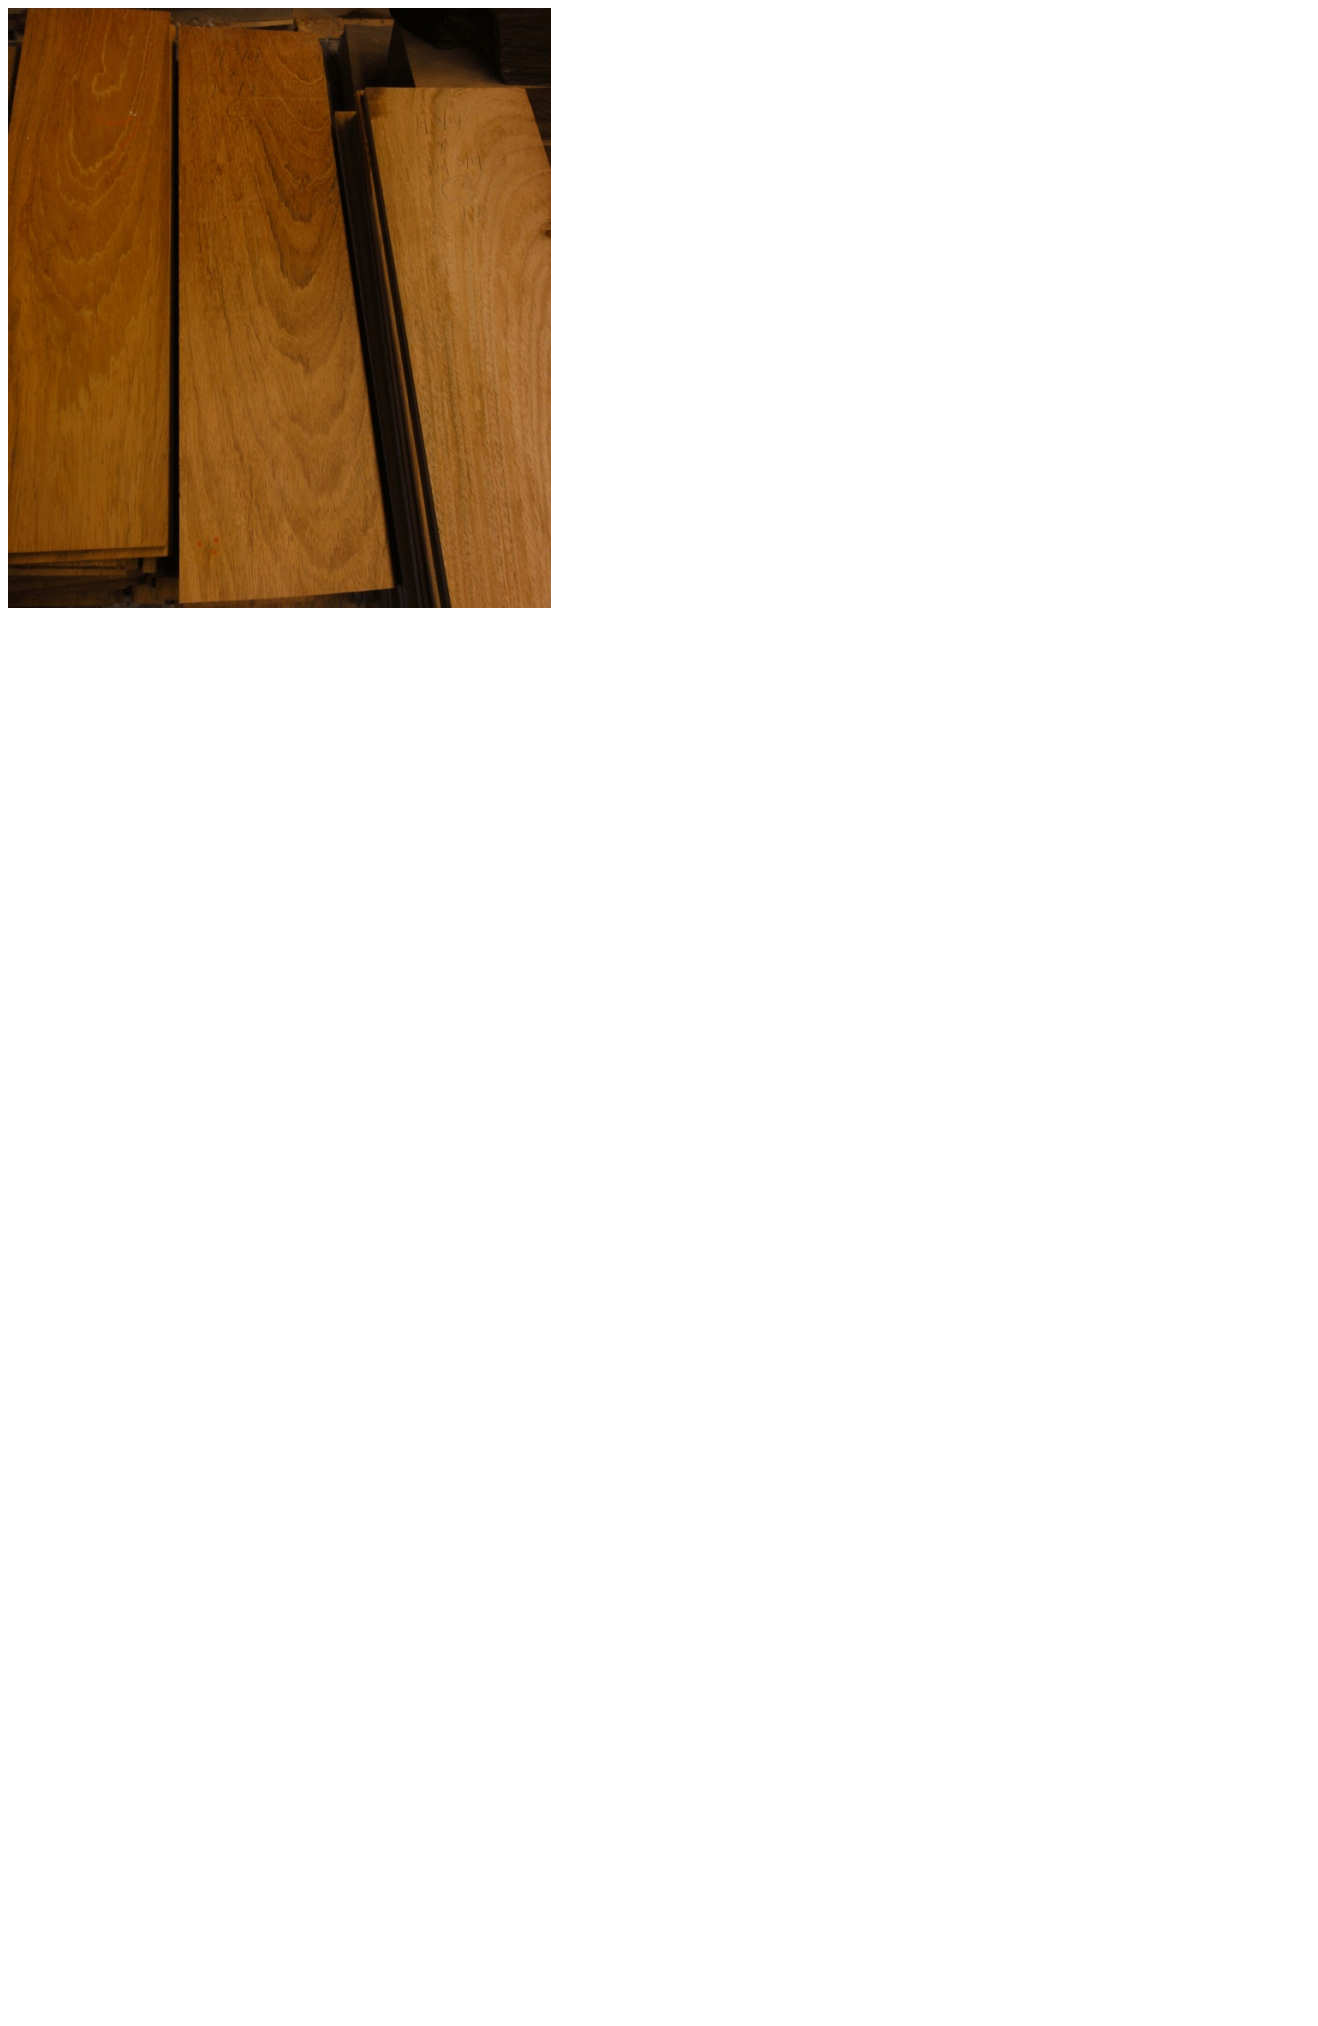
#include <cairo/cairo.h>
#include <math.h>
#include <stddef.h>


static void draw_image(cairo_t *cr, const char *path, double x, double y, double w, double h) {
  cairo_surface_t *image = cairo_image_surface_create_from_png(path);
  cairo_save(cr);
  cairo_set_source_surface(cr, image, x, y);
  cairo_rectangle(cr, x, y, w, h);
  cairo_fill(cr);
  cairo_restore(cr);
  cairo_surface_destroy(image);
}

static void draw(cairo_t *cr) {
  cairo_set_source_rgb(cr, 1, 1, 1);
  cairo_paint(cr);
  draw_image(cr, "images/1.png", 8, 8, 543, 600);
}

int main(void) {
  cairo_surface_t *surface = cairo_image_surface_create(CAIRO_FORMAT_RGB24, 1318, 2026);
  cairo_t *cr = cairo_create(surface);
  cairo_font_options_t *options = cairo_font_options_create();
  cairo_font_options_set_hint_metrics(options, CAIRO_HINT_METRICS_OFF);
  cairo_font_options_set_hint_style(options, CAIRO_HINT_STYLE_NONE);
  cairo_set_font_options(cr, options);
  cairo_set_miter_limit(cr, 4);
  draw(cr);
  cairo_surface_write_to_png(surface, "out.png");
  cairo_font_options_destroy(options);
  cairo_destroy(cr);
  cairo_surface_destroy(surface);
  return 0;
}
